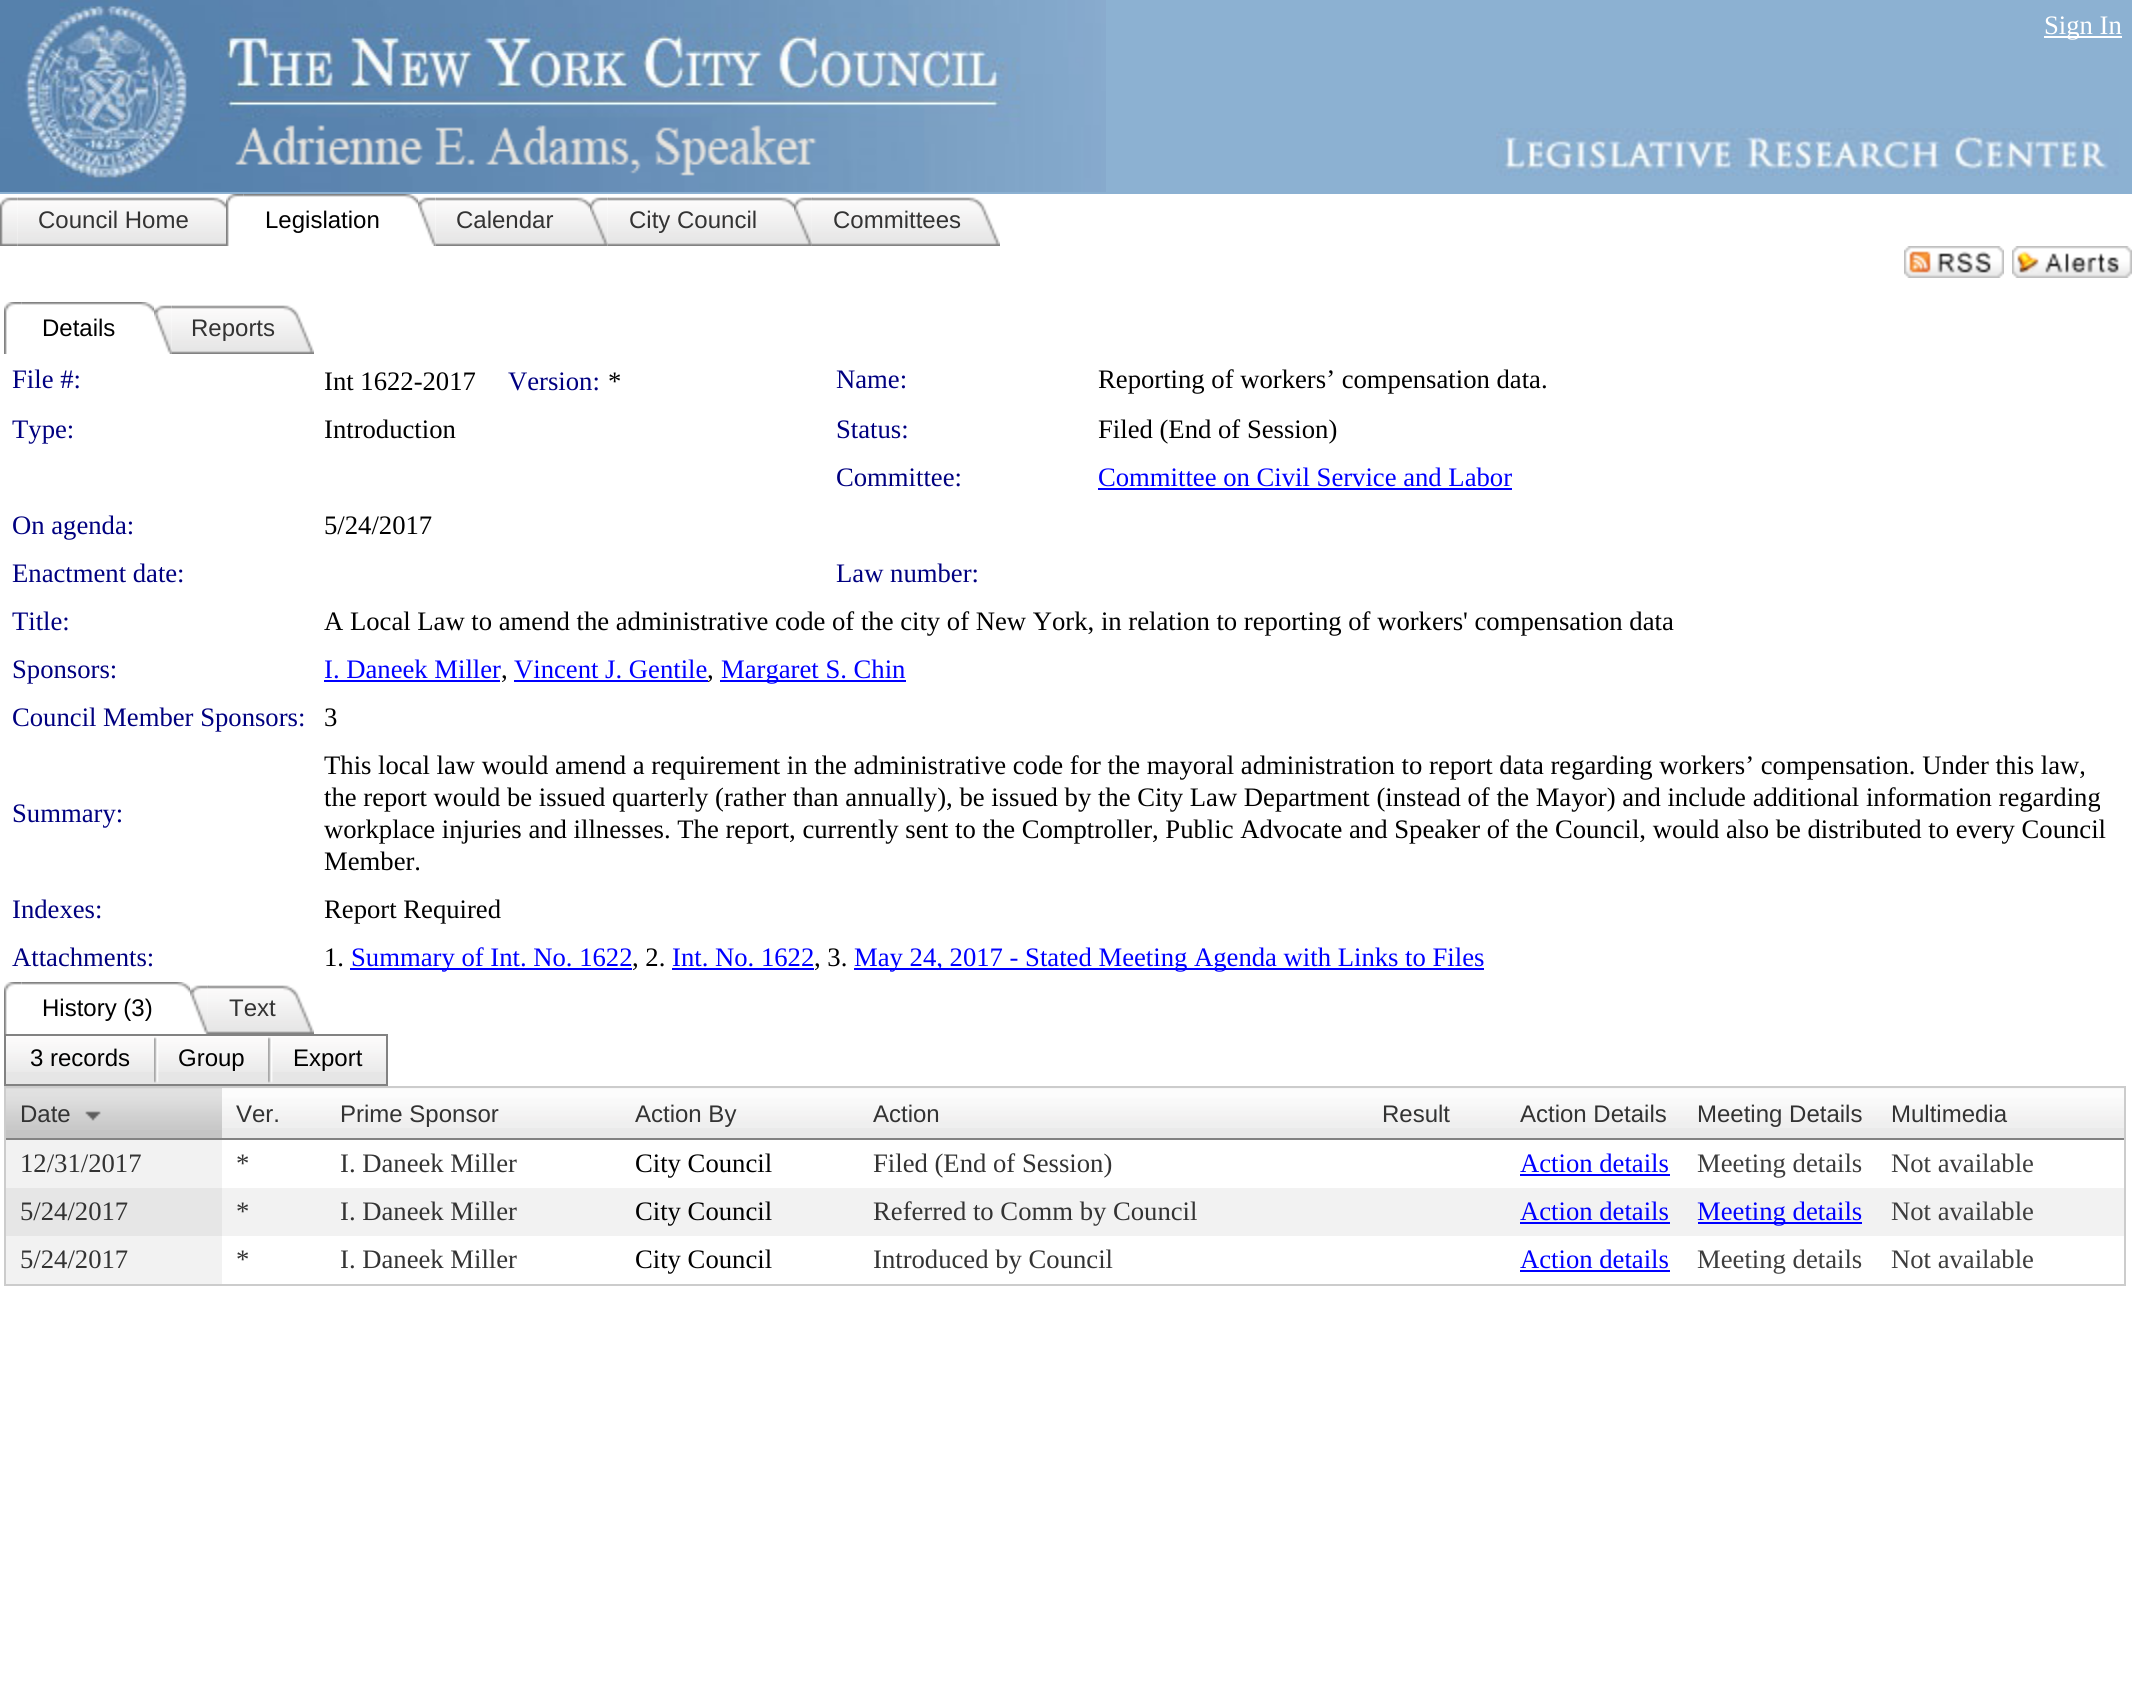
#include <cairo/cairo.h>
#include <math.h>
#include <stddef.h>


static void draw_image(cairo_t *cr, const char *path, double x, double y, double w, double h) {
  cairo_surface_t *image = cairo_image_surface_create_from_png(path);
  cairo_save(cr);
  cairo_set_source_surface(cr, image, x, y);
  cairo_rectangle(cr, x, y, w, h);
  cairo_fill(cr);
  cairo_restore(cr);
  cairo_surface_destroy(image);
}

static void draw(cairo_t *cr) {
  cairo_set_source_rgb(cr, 1, 1, 1);
  cairo_paint(cr);
  cairo_set_source_rgb(cr, 140 / 255.0, 177 / 255.0, 210 / 255.0);
  cairo_rectangle(cr, 0, 0, 2132, 194);
  cairo_fill(cr);
  draw_image(cr, "images/1.png", 0, 0, 1106, 192);
  draw_image(cr, "images/2.png", 1496, 128, 623, 48);
  cairo_set_source_rgb(cr, 1, 1, 1);
  cairo_rectangle(cr, 2044, 36, 78, 2);
  cairo_fill(cr);
  draw_image(cr, "images/3.png", 0, 197, 19, 49);
  draw_image(cr, "images/4.png", 18, 197, 208, 49);
  draw_image(cr, "images/5.png", 226, 194, 19, 52);
  draw_image(cr, "images/6.png", 244, 194, 174, 11);
  draw_image(cr, "images/7.png", 418, 197, 19, 49);
  draw_image(cr, "images/8.png", 436, 197, 154, 49);
  draw_image(cr, "images/9.png", 590, 197, 19, 49);
  draw_image(cr, "images/10.png", 608, 197, 186, 49);
  draw_image(cr, "images/11.png", 794, 197, 19, 49);
  draw_image(cr, "images/12.png", 812, 197, 188, 49);
  draw_image(cr, "images/13.png", 1904, 246, 100, 32);
  draw_image(cr, "images/14.png", 2012, 246, 120, 32);
  draw_image(cr, "images/5.png", 4, 302, 19, 52);
  draw_image(cr, "images/15.png", 22, 302, 132, 11);
  draw_image(cr, "images/16.png", 154, 305, 19, 49);
  draw_image(cr, "images/17.png", 172, 305, 142, 49);
  cairo_set_source_rgb(cr, 0, 0, 1);
  cairo_rectangle(cr, 1098, 488, 414, 2);
  cairo_fill(cr);
  cairo_rectangle(cr, 324, 680, 176, 2);
  cairo_fill(cr);
  cairo_rectangle(cr, 514, 680, 194, 2);
  cairo_fill(cr);
  cairo_rectangle(cr, 720, 680, 186, 2);
  cairo_fill(cr);
  cairo_rectangle(cr, 350, 968, 282, 2);
  cairo_fill(cr);
  cairo_rectangle(cr, 672, 968, 142, 2);
  cairo_fill(cr);
  cairo_rectangle(cr, 854, 968, 630, 2);
  cairo_fill(cr);
  draw_image(cr, "images/18.png", 4, 982, 19, 52);
  draw_image(cr, "images/19.png", 22, 982, 168, 11);
  draw_image(cr, "images/20.png", 190, 985, 19, 49);
  draw_image(cr, "images/21.png", 208, 985, 106, 49);
  cairo_set_source_rgb(cr, 230 / 255.0, 230 / 255.0, 230 / 255.0);
  cairo_rectangle(cr, 6, 1072, 380, 12);
  cairo_fill(cr);
  draw_image(cr, "images/22.png", 6, 1036, 380, 36);
  cairo_rectangle(cr, 5, 1035, 382, 50);
  cairo_set_source_rgb(cr, 130 / 255.0, 130 / 255.0, 130 / 255.0);
  cairo_stroke(cr);
  draw_image(cr, "images/23.png", 154, 1037, 5, 46);
  draw_image(cr, "images/24.png", 268, 1037, 5, 46);
  cairo_rectangle(cr, 5, 1087, 2120, 198);
  cairo_set_source_rgb(cr, 204 / 255.0, 204 / 255.0, 204 / 255.0);
  cairo_stroke(cr);
  cairo_set_source_rgb(cr, 196 / 255.0, 196 / 255.0, 196 / 255.0);
  cairo_rectangle(cr, 6, 1088, 216, 50);
  cairo_fill(cr);
  draw_image(cr, "images/25.png", 6, 1088, 216, 42);
  cairo_set_source_rgb(cr, 130 / 255.0, 130 / 255.0, 130 / 255.0);
  cairo_rectangle(cr, 6, 1138, 2118, 2);
  cairo_fill(cr);
  draw_image(cr, "images/26.png", 85, 1111, 16, 10);
  cairo_set_source_rgb(cr, 234 / 255.0, 234 / 255.0, 234 / 255.0);
  cairo_rectangle(cr, 222, 1088, 1902, 50);
  cairo_fill(cr);
  draw_image(cr, "images/27.png", 222, 1088, 104, 40);
  draw_image(cr, "images/28.png", 326, 1088, 296, 40);
  draw_image(cr, "images/29.png", 622, 1088, 238, 40);
  draw_image(cr, "images/30.png", 860, 1088, 508, 40);
  draw_image(cr, "images/31.png", 1368, 1088, 138, 40);
  draw_image(cr, "images/32.png", 1506, 1088, 178, 40);
  draw_image(cr, "images/33.png", 1684, 1088, 192, 40);
  draw_image(cr, "images/34.png", 1876, 1088, 248, 40);
  cairo_set_source_rgb(cr, 242 / 255.0, 242 / 255.0, 242 / 255.0);
  cairo_rectangle(cr, 6, 1140, 216, 48);
  cairo_fill(cr);
  cairo_set_source_rgb(cr, 0, 0, 1);
  cairo_rectangle(cr, 1520, 1174, 150, 2);
  cairo_fill(cr);
  cairo_set_source_rgb(cr, 242 / 255.0, 242 / 255.0, 242 / 255.0);
  cairo_rectangle(cr, 222, 1188, 1902, 48);
  cairo_fill(cr);
  cairo_set_source_rgb(cr, 230 / 255.0, 230 / 255.0, 230 / 255.0);
  cairo_rectangle(cr, 6, 1188, 216, 48);
  cairo_fill(cr);
  cairo_set_source_rgb(cr, 0, 0, 1);
  cairo_rectangle(cr, 1520, 1222, 150, 2);
  cairo_fill(cr);
  cairo_rectangle(cr, 1698, 1222, 164, 2);
  cairo_fill(cr);
  cairo_set_source_rgb(cr, 242 / 255.0, 242 / 255.0, 242 / 255.0);
  cairo_rectangle(cr, 6, 1236, 216, 48);
  cairo_fill(cr);
  cairo_set_source_rgb(cr, 0, 0, 1);
  cairo_rectangle(cr, 1520, 1270, 150, 2);
  cairo_fill(cr);
  cairo_select_font_face(cr, "Liberation Serif", CAIRO_FONT_SLANT_NORMAL, CAIRO_FONT_WEIGHT_NORMAL);
  cairo_set_font_size(cr, 26.67);
  cairo_set_source_rgb(cr, 1, 1, 1);
  cairo_move_to(cr, 2044, 34);
  cairo_show_text(cr, "Sign In");
  cairo_select_font_face(cr, "Liberation Sans", CAIRO_FONT_SLANT_NORMAL, CAIRO_FONT_WEIGHT_NORMAL);
  cairo_set_font_size(cr, 24);
  cairo_set_source_rgb(cr, 51 / 255.0, 51 / 255.0, 51 / 255.0);
  cairo_move_to(cr, 38, 228);
  cairo_show_text(cr, "Council Home");
  cairo_set_source_rgb(cr, 0, 0, 0);
  cairo_move_to(cr, 265, 228);
  cairo_show_text(cr, "Legislation");
  cairo_set_source_rgb(cr, 51 / 255.0, 51 / 255.0, 51 / 255.0);
  cairo_move_to(cr, 456, 228);
  cairo_show_text(cr, "Calendar");
  cairo_move_to(cr, 629, 228);
  cairo_show_text(cr, "City Council");
  cairo_move_to(cr, 833, 228);
  cairo_show_text(cr, "Committees");
  cairo_set_source_rgb(cr, 0, 0, 0);
  cairo_move_to(cr, 42, 336);
  cairo_show_text(cr, "Details");
  cairo_set_source_rgb(cr, 51 / 255.0, 51 / 255.0, 51 / 255.0);
  cairo_move_to(cr, 191, 336);
  cairo_show_text(cr, "Reports");
  cairo_select_font_face(cr, "Liberation Serif", CAIRO_FONT_SLANT_NORMAL, CAIRO_FONT_WEIGHT_NORMAL);
  cairo_set_font_size(cr, 26.67);
  cairo_set_source_rgb(cr, 0, 0, 128 / 255.0);
  cairo_move_to(cr, 12, 388);
  cairo_show_text(cr, "File #:");
  cairo_set_source_rgb(cr, 0, 0, 0);
  cairo_move_to(cr, 324, 390);
  cairo_show_text(cr, "Int 1622-2017");
  cairo_set_source_rgb(cr, 0, 0, 128 / 255.0);
  cairo_move_to(cr, 508, 390);
  cairo_show_text(cr, "Version:");
  cairo_set_source_rgb(cr, 0, 0, 0);
  cairo_move_to(cr, 608, 390);
  cairo_show_text(cr, "*");
  cairo_set_source_rgb(cr, 0, 0, 128 / 255.0);
  cairo_move_to(cr, 836, 388);
  cairo_show_text(cr, "Name:");
  cairo_set_source_rgb(cr, 0, 0, 0);
  cairo_move_to(cr, 1098, 388);
  cairo_show_text(cr, "Reporting of workers’ compensation data.");
  cairo_set_source_rgb(cr, 0, 0, 128 / 255.0);
  cairo_move_to(cr, 12, 438);
  cairo_show_text(cr, "Type:");
  cairo_set_source_rgb(cr, 0, 0, 0);
  cairo_move_to(cr, 324, 438);
  cairo_show_text(cr, "Introduction");
  cairo_set_source_rgb(cr, 0, 0, 128 / 255.0);
  cairo_move_to(cr, 836, 438);
  cairo_show_text(cr, "Status:");
  cairo_set_source_rgb(cr, 0, 0, 0);
  cairo_move_to(cr, 1098, 438);
  cairo_show_text(cr, "Filed (End of Session)");
  cairo_set_source_rgb(cr, 0, 0, 128 / 255.0);
  cairo_move_to(cr, 836, 486);
  cairo_show_text(cr, "Committee:");
  cairo_set_source_rgb(cr, 0, 0, 1);
  cairo_move_to(cr, 1098, 486);
  cairo_show_text(cr, "Committee on Civil Service and Labor");
  cairo_set_source_rgb(cr, 0, 0, 128 / 255.0);
  cairo_move_to(cr, 12, 534);
  cairo_show_text(cr, "On agenda:");
  cairo_set_source_rgb(cr, 0, 0, 0);
  cairo_move_to(cr, 324, 534);
  cairo_show_text(cr, "5/24/2017");
  cairo_set_source_rgb(cr, 0, 0, 128 / 255.0);
  cairo_move_to(cr, 12, 582);
  cairo_show_text(cr, "Enactment date:");
  cairo_move_to(cr, 836, 582);
  cairo_show_text(cr, "Law number:");
  cairo_move_to(cr, 12, 630);
  cairo_show_text(cr, "Title:");
  cairo_set_source_rgb(cr, 0, 0, 0);
  cairo_move_to(cr, 324, 630);
  cairo_show_text(cr, "A Local Law to amend the administrative code of the city of New York, in relation to reporting of workers' compensation data");
  cairo_set_source_rgb(cr, 0, 0, 128 / 255.0);
  cairo_move_to(cr, 12, 678);
  cairo_show_text(cr, "Sponsors:");
  cairo_set_source_rgb(cr, 0, 0, 1);
  cairo_move_to(cr, 324, 678);
  cairo_show_text(cr, "I. Daneek Miller");
  cairo_set_source_rgb(cr, 0, 0, 0);
  cairo_move_to(cr, 501, 678);
  cairo_show_text(cr, ",");
  cairo_set_source_rgb(cr, 0, 0, 1);
  cairo_move_to(cr, 514, 678);
  cairo_show_text(cr, "Vincent J. Gentile");
  cairo_set_source_rgb(cr, 0, 0, 0);
  cairo_move_to(cr, 707, 678);
  cairo_show_text(cr, ",");
  cairo_set_source_rgb(cr, 0, 0, 1);
  cairo_move_to(cr, 721, 678);
  cairo_show_text(cr, "Margaret S. Chin");
  cairo_set_source_rgb(cr, 0, 0, 128 / 255.0);
  cairo_move_to(cr, 12, 726);
  cairo_show_text(cr, "Council Member Sponsors:");
  cairo_set_source_rgb(cr, 0, 0, 0);
  cairo_move_to(cr, 324, 726);
  cairo_show_text(cr, "3");
  cairo_set_source_rgb(cr, 0, 0, 128 / 255.0);
  cairo_move_to(cr, 12, 822);
  cairo_show_text(cr, "Summary:");
  cairo_set_source_rgb(cr, 0, 0, 0);
  cairo_move_to(cr, 324, 774);
  cairo_show_text(cr, "This local law would amend a requirement in the administrative code for the mayoral administration to report data regarding workers’ compensation. Under this law,");
  cairo_move_to(cr, 324, 806);
  cairo_show_text(cr, "the report would be issued quarterly (rather than annually), be issued by the City Law Department (instead of the Mayor) and include additional information regarding");
  cairo_move_to(cr, 324, 838);
  cairo_show_text(cr, "workplace injuries and illnesses. The report, currently sent to the Comptroller, Public Advocate and Speaker of the Council, would also be distributed to every Council");
  cairo_move_to(cr, 324, 870);
  cairo_show_text(cr, "Member.");
  cairo_set_source_rgb(cr, 0, 0, 128 / 255.0);
  cairo_move_to(cr, 12, 918);
  cairo_show_text(cr, "Indexes:");
  cairo_set_source_rgb(cr, 0, 0, 0);
  cairo_move_to(cr, 324, 918);
  cairo_show_text(cr, "Report Required");
  cairo_set_source_rgb(cr, 0, 0, 128 / 255.0);
  cairo_move_to(cr, 12, 966);
  cairo_show_text(cr, "Attachments:");
  cairo_set_source_rgb(cr, 0, 0, 0);
  cairo_move_to(cr, 324, 966);
  cairo_show_text(cr, "1.");
  cairo_set_source_rgb(cr, 0, 0, 1);
  cairo_move_to(cr, 351, 966);
  cairo_show_text(cr, "Summary of Int. No. 1622");
  cairo_set_source_rgb(cr, 0, 0, 0);
  cairo_move_to(cr, 632, 966);
  cairo_show_text(cr, ", 2.");
  cairo_set_source_rgb(cr, 0, 0, 1);
  cairo_move_to(cr, 672, 966);
  cairo_show_text(cr, "Int. No. 1622");
  cairo_set_source_rgb(cr, 0, 0, 0);
  cairo_move_to(cr, 814, 966);
  cairo_show_text(cr, ", 3.");
  cairo_set_source_rgb(cr, 0, 0, 1);
  cairo_move_to(cr, 854, 966);
  cairo_show_text(cr, "May 24, 2017 - Stated Meeting Agenda with Links to Files");
  cairo_select_font_face(cr, "Liberation Sans", CAIRO_FONT_SLANT_NORMAL, CAIRO_FONT_WEIGHT_NORMAL);
  cairo_set_font_size(cr, 24);
  cairo_set_source_rgb(cr, 0, 0, 0);
  cairo_move_to(cr, 42, 1016);
  cairo_show_text(cr, "History (3)");
  cairo_set_source_rgb(cr, 51 / 255.0, 51 / 255.0, 51 / 255.0);
  cairo_move_to(cr, 229, 1016);
  cairo_show_text(cr, "Text");
  cairo_set_source_rgb(cr, 0, 0, 0);
  cairo_move_to(cr, 30, 1066);
  cairo_show_text(cr, "3 records");
  cairo_move_to(cr, 178, 1066);
  cairo_show_text(cr, "Group");
  cairo_move_to(cr, 293, 1066);
  cairo_show_text(cr, "Export");
  cairo_set_source_rgb(cr, 51 / 255.0, 51 / 255.0, 51 / 255.0);
  cairo_move_to(cr, 20, 1122);
  cairo_show_text(cr, "Date");
  cairo_move_to(cr, 236, 1122);
  cairo_show_text(cr, "Ver.");
  cairo_move_to(cr, 340, 1122);
  cairo_show_text(cr, "Prime Sponsor");
  cairo_move_to(cr, 635, 1122);
  cairo_show_text(cr, "Action By");
  cairo_move_to(cr, 873, 1122);
  cairo_show_text(cr, "Action");
  cairo_move_to(cr, 1382, 1122);
  cairo_show_text(cr, "Result");
  cairo_move_to(cr, 1520, 1122);
  cairo_show_text(cr, "Action Details");
  cairo_move_to(cr, 1697, 1122);
  cairo_show_text(cr, "Meeting Details");
  cairo_move_to(cr, 1891, 1122);
  cairo_show_text(cr, "Multimedia");
  cairo_select_font_face(cr, "Liberation Serif", CAIRO_FONT_SLANT_NORMAL, CAIRO_FONT_WEIGHT_NORMAL);
  cairo_set_font_size(cr, 26.67);
  cairo_move_to(cr, 20, 1172);
  cairo_show_text(cr, "12/31/2017");
  cairo_move_to(cr, 236, 1172);
  cairo_show_text(cr, "*");
  cairo_move_to(cr, 340, 1172);
  cairo_show_text(cr, "I. Daneek Miller");
  cairo_set_source_rgb(cr, 0, 0, 0);
  cairo_move_to(cr, 635, 1172);
  cairo_show_text(cr, "City Council");
  cairo_set_source_rgb(cr, 51 / 255.0, 51 / 255.0, 51 / 255.0);
  cairo_move_to(cr, 873, 1172);
  cairo_show_text(cr, "Filed (End of Session)");
  cairo_set_source_rgb(cr, 0, 0, 1);
  cairo_move_to(cr, 1520, 1172);
  cairo_show_text(cr, "Action details");
  cairo_set_source_rgb(cr, 61 / 255.0, 61 / 255.0, 61 / 255.0);
  cairo_move_to(cr, 1697, 1172);
  cairo_show_text(cr, "Meeting details");
  cairo_move_to(cr, 1891, 1172);
  cairo_show_text(cr, "Not available");
  cairo_set_source_rgb(cr, 51 / 255.0, 51 / 255.0, 51 / 255.0);
  cairo_move_to(cr, 20, 1220);
  cairo_show_text(cr, "5/24/2017");
  cairo_move_to(cr, 236, 1220);
  cairo_show_text(cr, "*");
  cairo_move_to(cr, 340, 1220);
  cairo_show_text(cr, "I. Daneek Miller");
  cairo_set_source_rgb(cr, 0, 0, 0);
  cairo_move_to(cr, 635, 1220);
  cairo_show_text(cr, "City Council");
  cairo_set_source_rgb(cr, 51 / 255.0, 51 / 255.0, 51 / 255.0);
  cairo_move_to(cr, 873, 1220);
  cairo_show_text(cr, "Referred to Comm by Council");
  cairo_set_source_rgb(cr, 0, 0, 1);
  cairo_move_to(cr, 1520, 1220);
  cairo_show_text(cr, "Action details");
  cairo_move_to(cr, 1697, 1220);
  cairo_show_text(cr, "Meeting details");
  cairo_set_source_rgb(cr, 61 / 255.0, 61 / 255.0, 61 / 255.0);
  cairo_move_to(cr, 1891, 1220);
  cairo_show_text(cr, "Not available");
  cairo_set_source_rgb(cr, 51 / 255.0, 51 / 255.0, 51 / 255.0);
  cairo_move_to(cr, 20, 1268);
  cairo_show_text(cr, "5/24/2017");
  cairo_move_to(cr, 236, 1268);
  cairo_show_text(cr, "*");
  cairo_move_to(cr, 340, 1268);
  cairo_show_text(cr, "I. Daneek Miller");
  cairo_set_source_rgb(cr, 0, 0, 0);
  cairo_move_to(cr, 635, 1268);
  cairo_show_text(cr, "City Council");
  cairo_set_source_rgb(cr, 51 / 255.0, 51 / 255.0, 51 / 255.0);
  cairo_move_to(cr, 873, 1268);
  cairo_show_text(cr, "Introduced by Council");
  cairo_set_source_rgb(cr, 0, 0, 1);
  cairo_move_to(cr, 1520, 1268);
  cairo_show_text(cr, "Action details");
  cairo_set_source_rgb(cr, 61 / 255.0, 61 / 255.0, 61 / 255.0);
  cairo_move_to(cr, 1697, 1268);
  cairo_show_text(cr, "Meeting details");
  cairo_move_to(cr, 1891, 1268);
  cairo_show_text(cr, "Not available");
}

int main(void) {
  cairo_surface_t *surface = cairo_image_surface_create(CAIRO_FORMAT_RGB24, 2132, 1705);
  cairo_t *cr = cairo_create(surface);
  cairo_font_options_t *options = cairo_font_options_create();
  cairo_font_options_set_hint_metrics(options, CAIRO_HINT_METRICS_OFF);
  cairo_font_options_set_hint_style(options, CAIRO_HINT_STYLE_NONE);
  cairo_set_font_options(cr, options);
  cairo_set_miter_limit(cr, 4);
  draw(cr);
  cairo_surface_write_to_png(surface, "out.png");
  cairo_font_options_destroy(options);
  cairo_destroy(cr);
  cairo_surface_destroy(surface);
  return 0;
}
